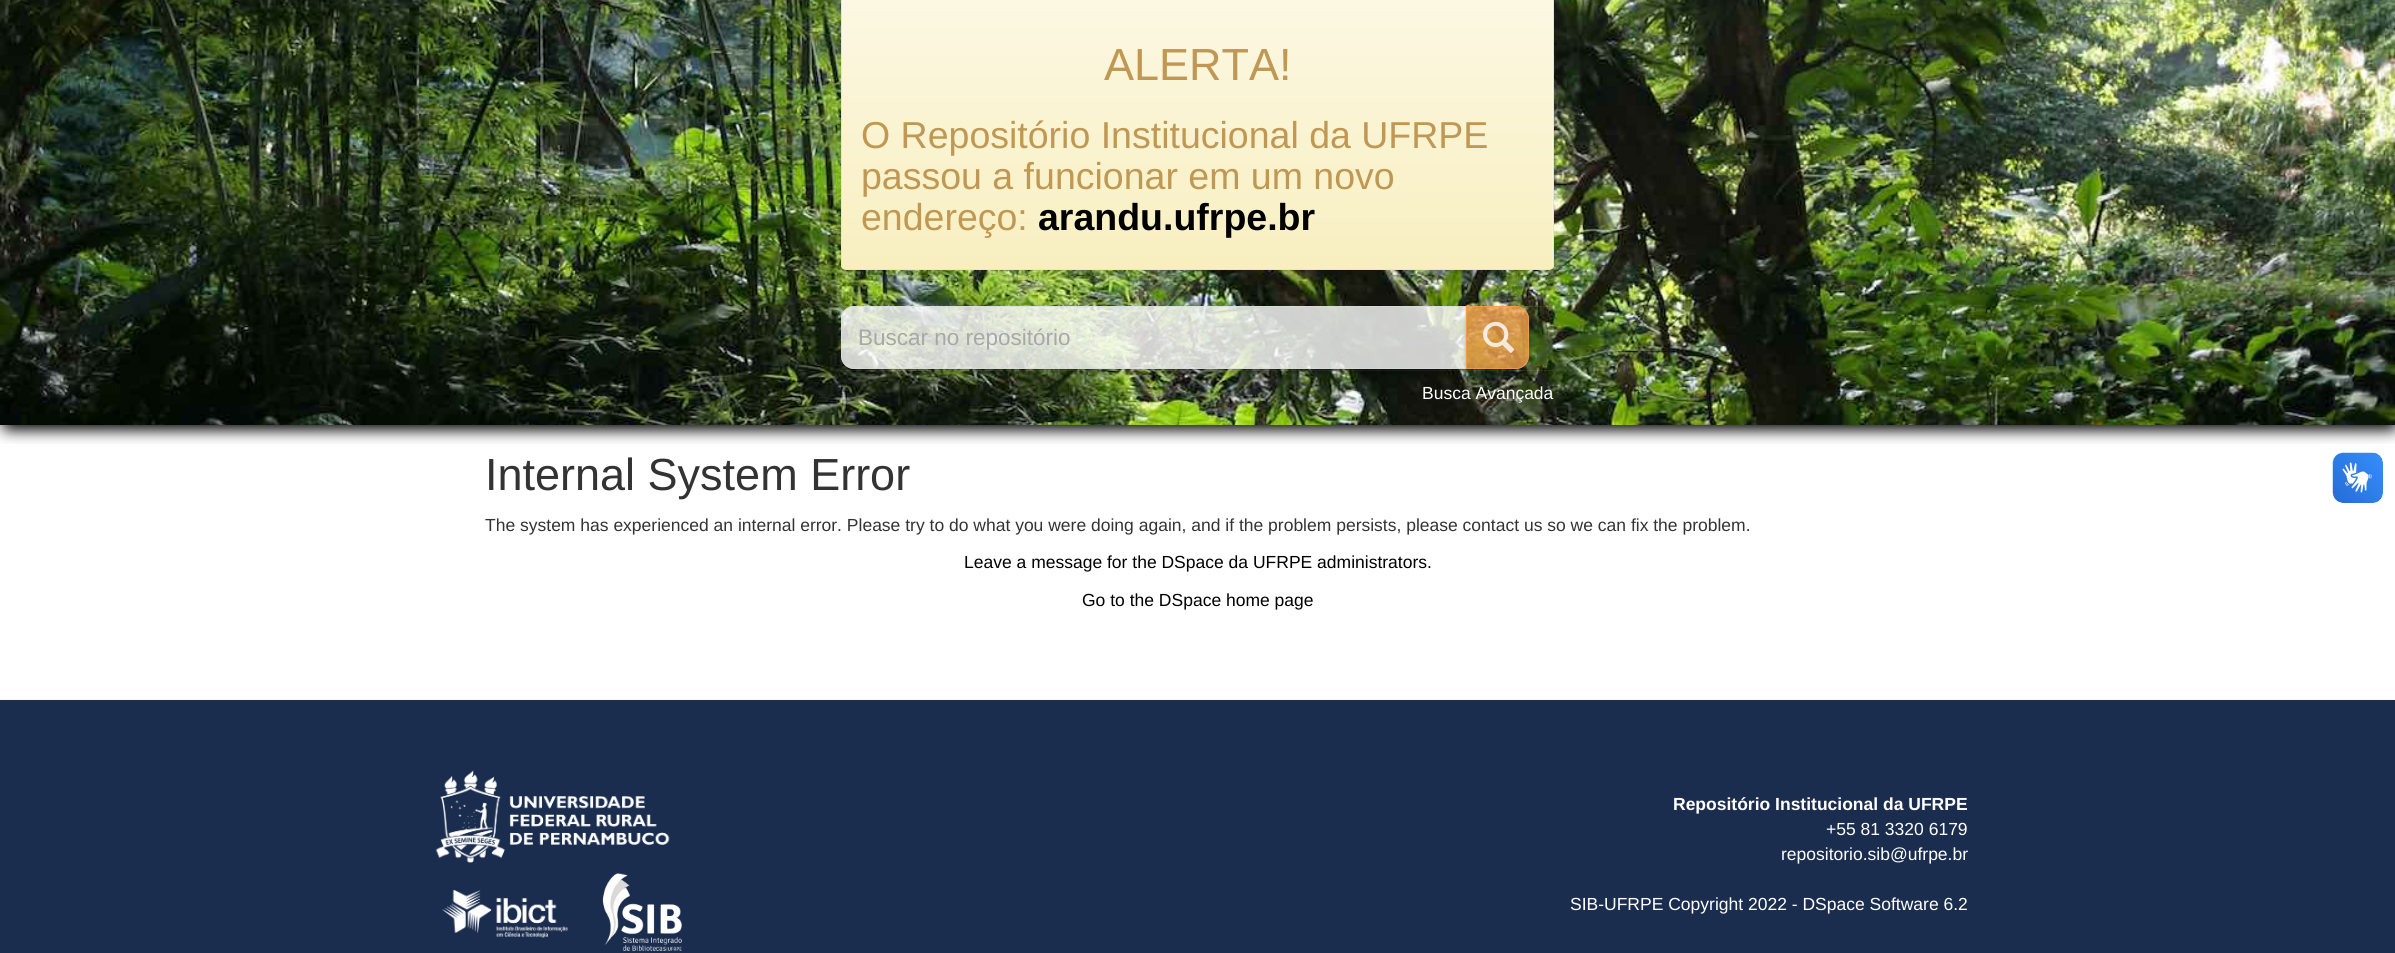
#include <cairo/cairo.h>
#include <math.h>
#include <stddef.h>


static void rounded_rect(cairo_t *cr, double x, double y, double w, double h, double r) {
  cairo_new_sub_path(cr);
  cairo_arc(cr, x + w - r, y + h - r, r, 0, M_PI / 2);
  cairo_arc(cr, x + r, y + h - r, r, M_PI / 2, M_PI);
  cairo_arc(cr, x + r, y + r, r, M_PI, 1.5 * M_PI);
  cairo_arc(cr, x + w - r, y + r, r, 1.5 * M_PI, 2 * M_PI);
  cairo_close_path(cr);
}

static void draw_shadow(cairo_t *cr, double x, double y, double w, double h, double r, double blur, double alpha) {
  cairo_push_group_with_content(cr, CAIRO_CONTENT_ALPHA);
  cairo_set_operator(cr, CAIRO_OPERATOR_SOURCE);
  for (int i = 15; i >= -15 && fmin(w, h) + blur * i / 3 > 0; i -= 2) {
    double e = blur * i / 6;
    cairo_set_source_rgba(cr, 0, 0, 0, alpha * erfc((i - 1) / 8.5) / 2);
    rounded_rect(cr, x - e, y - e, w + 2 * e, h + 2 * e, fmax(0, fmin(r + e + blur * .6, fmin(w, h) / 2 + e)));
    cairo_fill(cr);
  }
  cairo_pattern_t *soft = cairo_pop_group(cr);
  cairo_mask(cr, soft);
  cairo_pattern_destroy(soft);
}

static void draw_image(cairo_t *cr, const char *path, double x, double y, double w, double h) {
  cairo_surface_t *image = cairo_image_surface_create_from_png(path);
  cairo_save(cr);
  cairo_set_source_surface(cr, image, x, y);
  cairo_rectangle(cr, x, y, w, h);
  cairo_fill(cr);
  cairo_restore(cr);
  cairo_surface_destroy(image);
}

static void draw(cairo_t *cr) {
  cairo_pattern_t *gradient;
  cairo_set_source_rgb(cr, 1, 1, 1);
  cairo_paint(cr);
  draw_image(cr, "images/1.png", 0, 0, 2395, 444);
  cairo_set_source_rgb(cr, 0, 0, 0);
  draw_shadow(cr, 841, -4, 713, 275, 5, 1, 0.05);
  cairo_save(cr);
  rounded_rect(cr, 841, -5, 713, 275, 5);
  cairo_clip(cr);
  gradient = cairo_pattern_create_linear(1198, -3.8, 1198, 269);
  cairo_pattern_add_color_stop_rgba(gradient, 0, 252 / 255.0, 248 / 255.0, 227 / 255.0, 1);
  cairo_pattern_add_color_stop_rgba(gradient, 1, 248 / 255.0, 239 / 255.0, 192 / 255.0, 1);
  cairo_set_source(cr, gradient);
  cairo_pattern_destroy(gradient);
  cairo_rectangle(cr, 841, 0, 713, 269);
  cairo_fill(cr);
  cairo_restore(cr);
  cairo_set_source_rgba(cr, 1, 1, 1, 0.25);
  cairo_new_path(cr);
  cairo_move_to(cr, 846, -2);
  cairo_line_to(cr, 1549, -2);
  cairo_curve_to(cr, 1551, -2, 1552, -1, 1552, 1);
  cairo_line_to(cr, 1552, 266);
  cairo_line_to(cr, 1552, 268);
  cairo_curve_to(cr, 1552, 267, 1553, 266, 1553, 265);
  cairo_line_to(cr, 1553, 0);
  cairo_curve_to(cr, 1553, -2, 1551, -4, 1549, -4);
  cairo_line_to(cr, 847, -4);
  cairo_curve_to(cr, 845, -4, 844, -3, 843, -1);
  cairo_close_path(cr);
  cairo_fill(cr);
  rounded_rect(cr, 841.5, -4.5, 712, 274, 4.5);
  cairo_set_source_rgb(cr, 245 / 255.0, 231 / 255.0, 158 / 255.0);
  cairo_set_line_width(cr, 1);
  cairo_stroke(cr);
  cairo_set_source_rgba(cr, 1, 1, 1, 0.08);
  cairo_new_path(cr);
  cairo_move_to(cr, 841, 306);
  cairo_line_to(cr, 841, 371);
  cairo_line_to(cr, 1554, 371);
  cairo_line_to(cr, 1554, 306);
  cairo_line_to(cr, 1554, 370);
  cairo_line_to(cr, 841, 370);
  cairo_close_path(cr);
  cairo_fill(cr);
  cairo_rectangle(cr, 841, 306, 713, 1);
  cairo_fill(cr);
  cairo_save(cr);
  cairo_set_fill_rule(cr, CAIRO_FILL_RULE_EVEN_ODD);
  cairo_new_path(cr);
  cairo_move_to(cr, 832, 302);
  cairo_line_to(cr, 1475, 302);
  cairo_line_to(cr, 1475, 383);
  cairo_line_to(cr, 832, 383);
  cairo_close_path(cr);
  cairo_move_to(cr, 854, 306);
  cairo_line_to(cr, 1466, 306);
  cairo_line_to(cr, 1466, 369);
  cairo_line_to(cr, 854, 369);
  cairo_curve_to(cr, 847, 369, 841, 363, 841, 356);
  cairo_line_to(cr, 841, 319);
  cairo_curve_to(cr, 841, 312, 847, 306, 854, 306);
  cairo_close_path(cr);
  cairo_clip(cr);
  cairo_set_source_rgb(cr, 0, 0, 0);
  draw_shadow(cr, 841, 311, 625, 63, 13, 2.5, 0.2);
  cairo_restore(cr);
  cairo_set_source_rgba(cr, 1, 1, 1, 0.8);
  cairo_new_path(cr);
  cairo_move_to(cr, 854, 306);
  cairo_line_to(cr, 1466, 306);
  cairo_line_to(cr, 1466, 369);
  cairo_line_to(cr, 854, 369);
  cairo_curve_to(cr, 847, 369, 841, 363, 841, 356);
  cairo_line_to(cr, 841, 319);
  cairo_curve_to(cr, 841, 312, 847, 306, 854, 306);
  cairo_close_path(cr);
  cairo_fill(cr);
  cairo_new_path(cr);
  cairo_move_to(cr, 854, 306.5);
  cairo_line_to(cr, 1465.5, 306.5);
  cairo_line_to(cr, 1465.5, 368.5);
  cairo_line_to(cr, 854, 368.5);
  cairo_curve_to(cr, 847, 368.5, 841.5, 363, 841.5, 356);
  cairo_line_to(cr, 841.5, 319);
  cairo_curve_to(cr, 841.5, 312, 847, 306.5, 854, 306.5);
  cairo_close_path(cr);
  cairo_set_source_rgba(cr, 217 / 255.0, 217 / 255.0, 217 / 255.0, 0.8);
  cairo_stroke(cr);
  cairo_save(cr);
  cairo_set_fill_rule(cr, CAIRO_FILL_RULE_EVEN_ODD);
  cairo_new_path(cr);
  cairo_move_to(cr, 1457, 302);
  cairo_line_to(cr, 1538, 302);
  cairo_line_to(cr, 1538, 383);
  cairo_line_to(cr, 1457, 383);
  cairo_close_path(cr);
  cairo_move_to(cr, 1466, 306);
  cairo_line_to(cr, 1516, 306);
  cairo_curve_to(cr, 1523, 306, 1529, 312, 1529, 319);
  cairo_line_to(cr, 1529, 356);
  cairo_curve_to(cr, 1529, 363, 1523, 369, 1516, 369);
  cairo_line_to(cr, 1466, 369);
  cairo_close_path(cr);
  cairo_clip(cr);
  cairo_set_source_rgb(cr, 0, 0, 0);
  draw_shadow(cr, 1466, 311, 63, 63, 13, 2.5, 0.2);
  cairo_restore(cr);
  cairo_set_source_rgba(cr, 241 / 255.0, 159 / 255.0, 77 / 255.0, 0.8);
  cairo_new_path(cr);
  cairo_move_to(cr, 1466, 306);
  cairo_line_to(cr, 1516, 306);
  cairo_curve_to(cr, 1523, 306, 1529, 312, 1529, 319);
  cairo_line_to(cr, 1529, 356);
  cairo_curve_to(cr, 1529, 363, 1523, 369, 1516, 369);
  cairo_line_to(cr, 1466, 369);
  cairo_close_path(cr);
  cairo_fill(cr);
  cairo_new_path(cr);
  cairo_move_to(cr, 1466.5, 306.5);
  cairo_line_to(cr, 1516, 306.5);
  cairo_curve_to(cr, 1523, 306.5, 1528.5, 312, 1528.5, 319);
  cairo_line_to(cr, 1528.5, 356);
  cairo_curve_to(cr, 1528.5, 363, 1523, 368.5, 1516, 368.5);
  cairo_line_to(cr, 1466.5, 368.5);
  cairo_close_path(cr);
  cairo_stroke(cr);
  draw_image(cr, "images/2.png", 1483, 321, 32, 32);
  draw_image(cr, "images/3.png", 2332, 452, 51, 51);
  draw_image(cr, "images/4.png", 2333, 453, 50, 50);
  cairo_set_source_rgb(cr, 0, 0, 0);
  draw_shadow(cr, 0, 701, 2395, 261, 0, 3, 0.07);
  cairo_set_source_rgb(cr, 27 / 255.0, 45 / 255.0, 79 / 255.0);
  cairo_rectangle(cr, 0, 700, 2395, 253);
  cairo_fill(cr);
  draw_image(cr, "images/5.png", 435, 770, 235, 93);
  draw_image(cr, "images/6.png", 442, 890, 126, 48);
  draw_image(cr, "images/7.png", 602, 873, 80, 78);
  cairo_select_font_face(cr, "Liberation Sans", CAIRO_FONT_SLANT_NORMAL, CAIRO_FONT_WEIGHT_NORMAL);
  cairo_set_font_size(cr, 45);
  cairo_set_source_rgb(cr, 192 / 255.0, 152 / 255.0, 83 / 255.0);
  cairo_move_to(cr, 1104, 80);
  cairo_show_text(cr, "ALERTA!");
  cairo_set_font_size(cr, 37.5);
  cairo_move_to(cr, 861, 148);
  cairo_show_text(cr, "O Repositório Institucional da UFRPE");
  cairo_move_to(cr, 861, 189);
  cairo_show_text(cr, "passou a funcionar em um novo");
  cairo_move_to(cr, 861, 230);
  cairo_show_text(cr, "endereço:");
  cairo_select_font_face(cr, "Liberation Sans", CAIRO_FONT_SLANT_NORMAL, CAIRO_FONT_WEIGHT_BOLD);
  cairo_set_source_rgb(cr, 0, 0, 0);
  cairo_move_to(cr, 1038, 230);
  cairo_show_text(cr, "arandu.ufrpe.br");
  cairo_select_font_face(cr, "Liberation Sans", CAIRO_FONT_SLANT_NORMAL, CAIRO_FONT_WEIGHT_NORMAL);
  cairo_set_font_size(cr, 22.5);
  cairo_set_source_rgb(cr, 167 / 255.0, 168 / 255.0, 166 / 255.0);
  cairo_move_to(cr, 858, 345);
  cairo_show_text(cr, "Buscar no repositório");
  cairo_set_font_size(cr, 17.5);
  cairo_set_source_rgb(cr, 1, 1, 1);
  cairo_move_to(cr, 1422, 399);
  cairo_show_text(cr, "Busca Avançada");
  cairo_set_font_size(cr, 45);
  cairo_set_source_rgb(cr, 51 / 255.0, 51 / 255.0, 51 / 255.0);
  cairo_move_to(cr, 485, 490);
  cairo_show_text(cr, "Internal System Error");
  cairo_set_font_size(cr, 17.5);
  cairo_move_to(cr, 485, 531);
  cairo_show_text(cr, "The system has experienced an internal error. Please try to do what you were doing again, and if the problem persists, please contact us so we can fix the problem.");
  cairo_set_source_rgb(cr, 0, 0, 0);
  cairo_move_to(cr, 964, 568);
  cairo_show_text(cr, "Leave a message for the DSpace da UFRPE administrators.");
  cairo_move_to(cr, 1082, 606);
  cairo_show_text(cr, "Go to the DSpace home page");
  cairo_select_font_face(cr, "Liberation Sans", CAIRO_FONT_SLANT_NORMAL, CAIRO_FONT_WEIGHT_BOLD);
  cairo_set_source_rgb(cr, 1, 1, 1);
  cairo_move_to(cr, 1673, 810);
  cairo_show_text(cr, "Repositório Institucional da UFRPE");
  cairo_select_font_face(cr, "Liberation Sans", CAIRO_FONT_SLANT_NORMAL, CAIRO_FONT_WEIGHT_NORMAL);
  cairo_move_to(cr, 1826, 835);
  cairo_show_text(cr, "+55 81 3320 6179");
  cairo_move_to(cr, 1781, 860);
  cairo_show_text(cr, "repositorio.sib@ufrpe.br");
  cairo_move_to(cr, 1570, 910);
  cairo_show_text(cr, "SIB-UFRPE Copyright 2022 - DSpace Software 6.2");
}

int main(void) {
  cairo_surface_t *surface = cairo_image_surface_create(CAIRO_FORMAT_RGB24, 2395, 953);
  cairo_t *cr = cairo_create(surface);
  cairo_font_options_t *options = cairo_font_options_create();
  cairo_font_options_set_hint_metrics(options, CAIRO_HINT_METRICS_OFF);
  cairo_font_options_set_hint_style(options, CAIRO_HINT_STYLE_NONE);
  cairo_set_font_options(cr, options);
  cairo_set_miter_limit(cr, 4);
  draw(cr);
  cairo_surface_write_to_png(surface, "out.png");
  cairo_font_options_destroy(options);
  cairo_destroy(cr);
  cairo_surface_destroy(surface);
  return 0;
}
